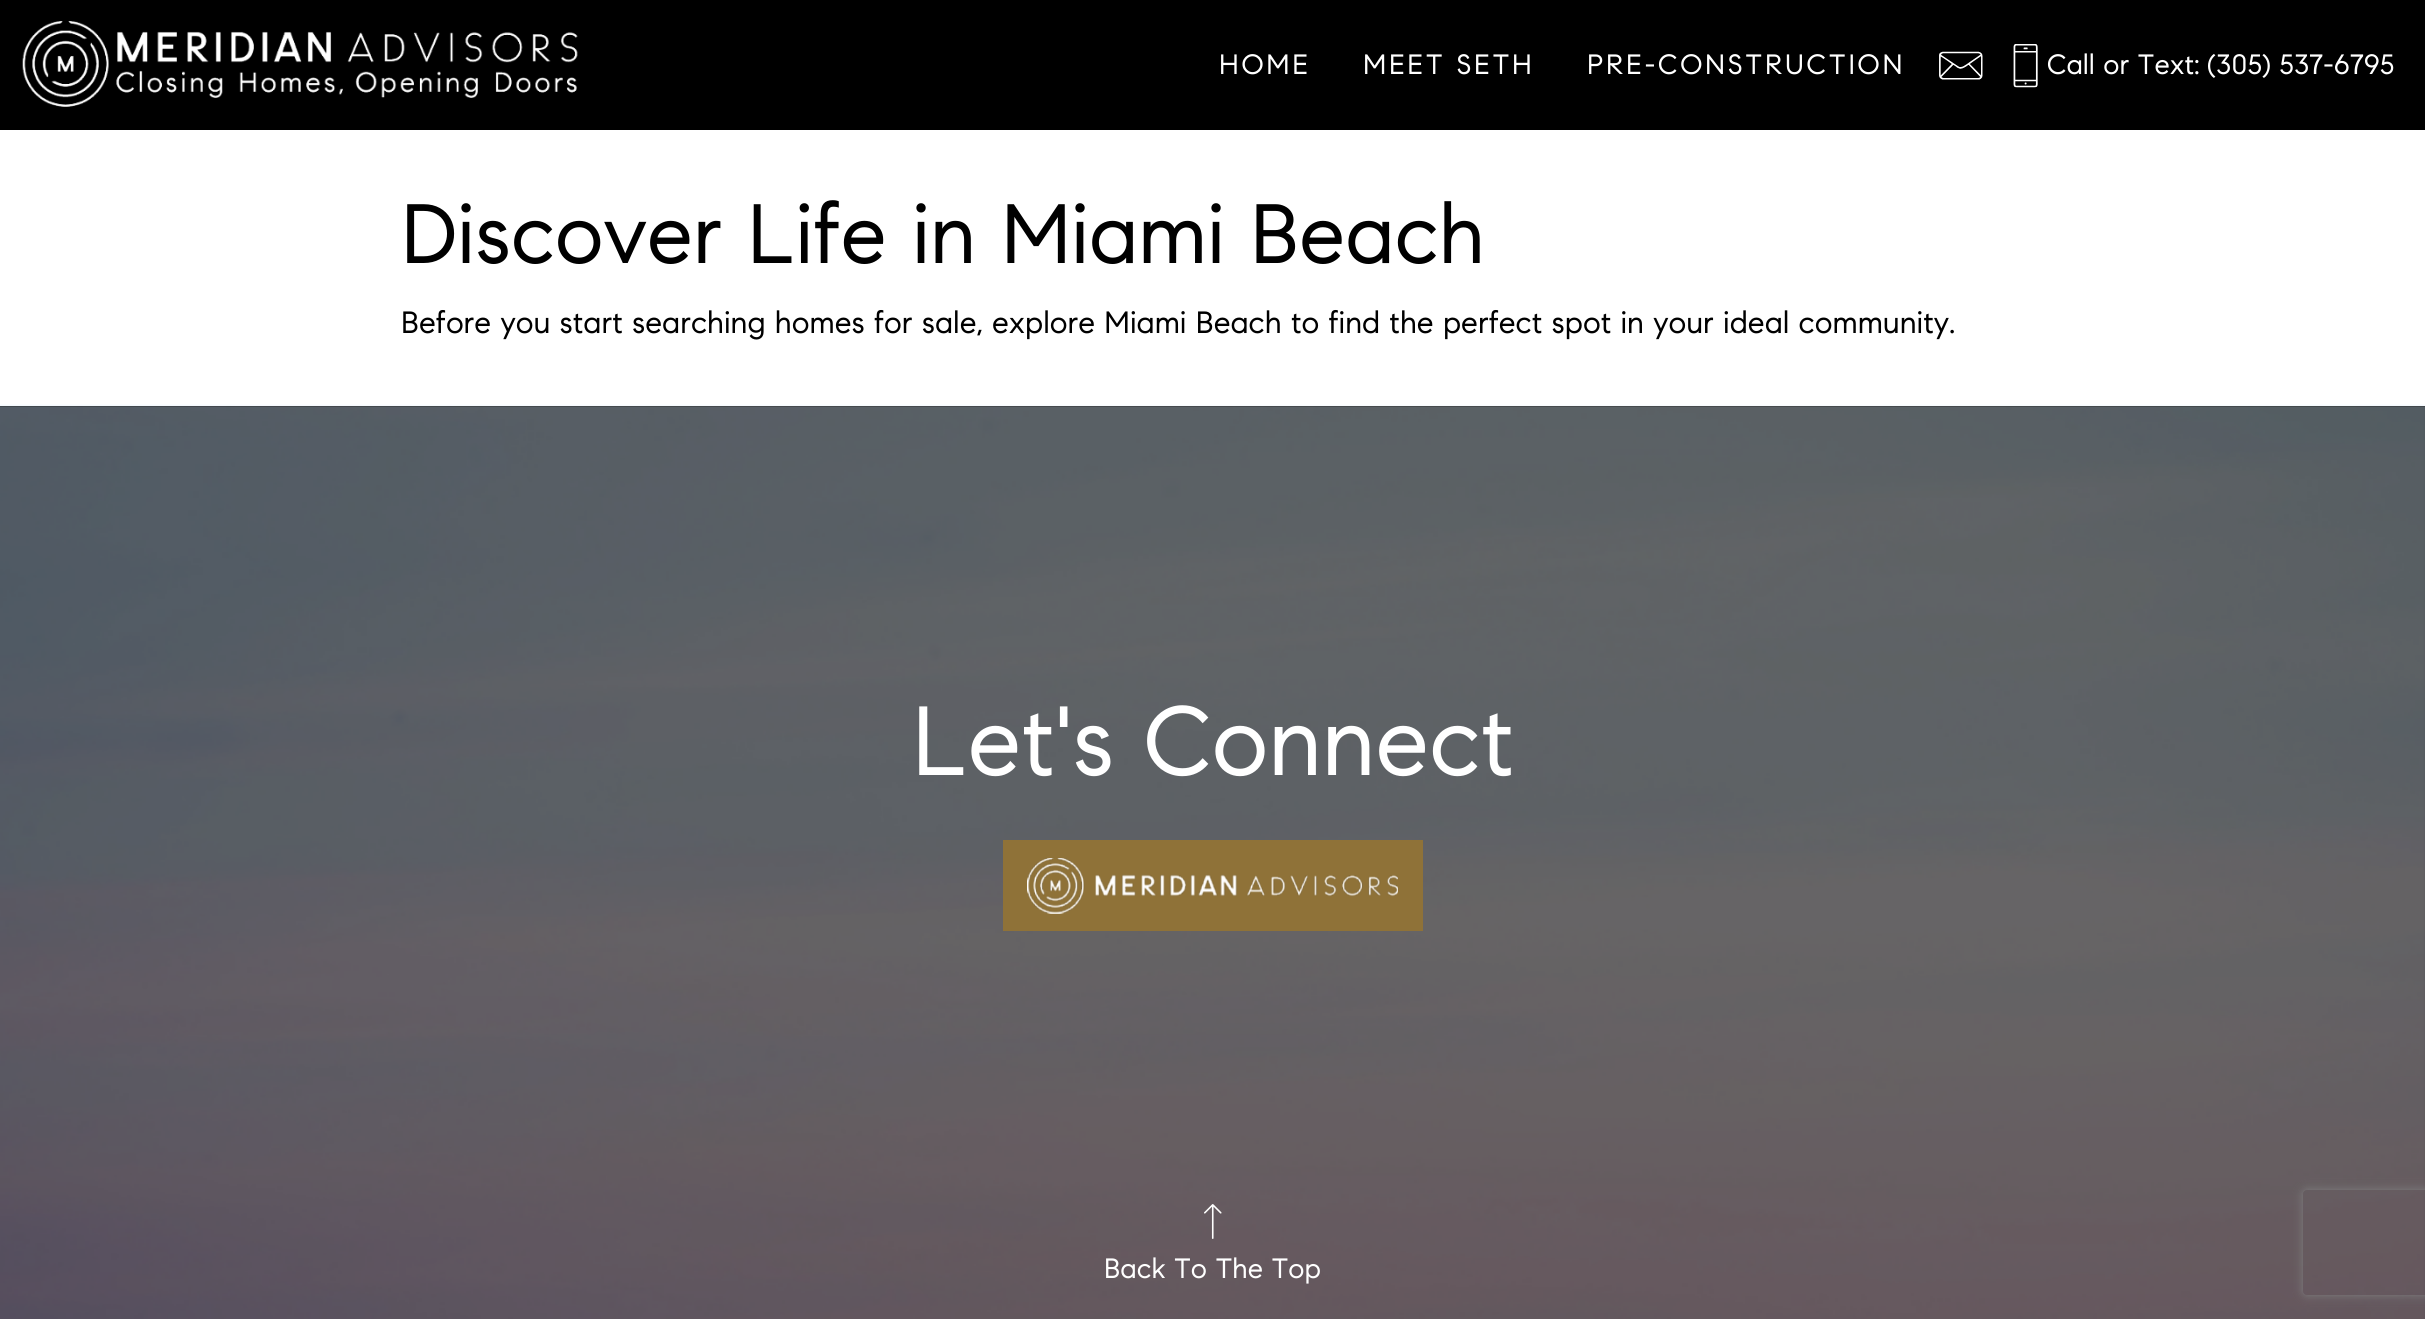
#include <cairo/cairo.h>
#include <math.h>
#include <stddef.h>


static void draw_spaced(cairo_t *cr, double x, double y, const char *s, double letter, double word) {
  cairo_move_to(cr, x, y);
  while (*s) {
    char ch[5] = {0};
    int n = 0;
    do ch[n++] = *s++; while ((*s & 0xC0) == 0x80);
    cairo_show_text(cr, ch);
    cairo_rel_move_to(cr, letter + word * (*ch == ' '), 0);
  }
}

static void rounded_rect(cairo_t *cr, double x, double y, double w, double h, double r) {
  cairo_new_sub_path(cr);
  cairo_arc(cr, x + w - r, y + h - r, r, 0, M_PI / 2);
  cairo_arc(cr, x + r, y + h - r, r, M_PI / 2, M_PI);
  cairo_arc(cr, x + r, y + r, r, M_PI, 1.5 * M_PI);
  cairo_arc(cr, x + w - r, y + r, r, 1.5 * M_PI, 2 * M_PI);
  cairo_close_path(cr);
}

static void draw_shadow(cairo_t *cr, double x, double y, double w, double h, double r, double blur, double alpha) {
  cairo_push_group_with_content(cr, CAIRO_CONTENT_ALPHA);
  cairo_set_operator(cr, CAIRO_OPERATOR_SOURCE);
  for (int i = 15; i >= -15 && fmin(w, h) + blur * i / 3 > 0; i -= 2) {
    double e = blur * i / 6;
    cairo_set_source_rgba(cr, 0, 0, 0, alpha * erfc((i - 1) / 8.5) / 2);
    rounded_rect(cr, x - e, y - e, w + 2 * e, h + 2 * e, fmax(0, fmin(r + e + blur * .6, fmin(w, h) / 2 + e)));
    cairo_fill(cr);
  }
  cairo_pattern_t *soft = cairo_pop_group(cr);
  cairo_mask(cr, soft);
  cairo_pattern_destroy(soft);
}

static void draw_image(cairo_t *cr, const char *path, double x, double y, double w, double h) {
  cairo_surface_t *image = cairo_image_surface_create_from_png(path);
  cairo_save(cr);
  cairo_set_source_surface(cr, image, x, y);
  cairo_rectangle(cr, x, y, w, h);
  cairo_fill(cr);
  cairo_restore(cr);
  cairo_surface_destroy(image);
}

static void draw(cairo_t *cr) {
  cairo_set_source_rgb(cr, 1, 1, 1);
  cairo_paint(cr);
  cairo_set_source_rgb(cr, 0, 0, 0);
  cairo_rectangle(cr, 0, 0, 2425, 130);
  cairo_fill(cr);
  draw_image(cr, "images/1.png", 22, 21, 556, 86);
  draw_image(cr, "images/2.png", 1939, 51, 44, 29);
  draw_image(cr, "images/3.png", 2013, 44, 25, 44);
  cairo_set_source_rgb(cr, 34 / 255.0, 34 / 255.0, 34 / 255.0);
  cairo_rectangle(cr, 0, 406, 2425, 913);
  cairo_fill(cr);
  draw_image(cr, "images/4.png", 0, 404, 2425, 915);
  cairo_set_source_rgb(cr, 143 / 255.0, 114 / 255.0, 56 / 255.0);
  cairo_rectangle(cr, 1003, 840, 420, 91);
  cairo_fill(cr);
  draw_image(cr, "images/5.png", 1027, 858, 371, 56);
  draw_image(cr, "images/6.png", 1204, 1204, 18, 35);
  cairo_save(cr);
  cairo_set_fill_rule(cr, CAIRO_FILL_RULE_EVEN_ODD);
  cairo_new_path(cr);
  cairo_move_to(cr, 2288, 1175);
  cairo_line_to(cr, 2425, 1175);
  cairo_line_to(cr, 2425, 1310);
  cairo_line_to(cr, 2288, 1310);
  cairo_close_path(cr);
  cairo_move_to(cr, 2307, 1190);
  cairo_line_to(cr, 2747, 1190);
  cairo_curve_to(cr, 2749, 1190, 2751, 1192, 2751, 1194);
  cairo_line_to(cr, 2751, 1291);
  cairo_curve_to(cr, 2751, 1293, 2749, 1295, 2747, 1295);
  cairo_line_to(cr, 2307, 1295);
  cairo_curve_to(cr, 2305, 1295, 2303, 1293, 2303, 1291);
  cairo_line_to(cr, 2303, 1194);
  cairo_curve_to(cr, 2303, 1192, 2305, 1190, 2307, 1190);
  cairo_close_path(cr);
  cairo_clip(cr);
  cairo_set_source_rgb(cr, 128 / 255.0, 128 / 255.0, 128 / 255.0);
  draw_shadow(cr, 2303, 1190, 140, 105, 4, 4.5, 1);
  cairo_restore(cr);
  cairo_select_font_face(cr, "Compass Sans", CAIRO_FONT_SLANT_NORMAL, CAIRO_FONT_WEIGHT_NORMAL);
  cairo_set_font_size(cr, 28);
  cairo_set_source_rgb(cr, 1, 1, 1);
  draw_spaced(cr, 1219, 74, "HOME", 2.75, 0);
  draw_spaced(cr, 1363, 74, "MEET SETH", 2.75, 0);
  draw_spaced(cr, 1587, 74, "PRE-CONSTRUCTION", 2.75, 0);
  cairo_move_to(cr, 2047, 74);
  cairo_show_text(cr, "Call or Text:");
  cairo_move_to(cr, 2207, 74);
  cairo_show_text(cr, "(305) 537-6795");
  cairo_set_font_size(cr, 84);
  cairo_set_source_rgb(cr, 0, 0, 0);
  cairo_move_to(cr, 401, 263);
  cairo_show_text(cr, "Discover Life in Miami Beach");
  cairo_set_font_size(cr, 30.8);
  cairo_move_to(cr, 401, 333);
  cairo_show_text(cr, "Before you start searching homes for sale, explore Miami Beach to find the perfect spot in your ideal community.");
  cairo_set_font_size(cr, 98);
  cairo_set_source_rgb(cr, 1, 1, 1);
  cairo_move_to(cr, 912, 775);
  cairo_show_text(cr, "Let's Connect");
  cairo_set_font_size(cr, 28);
  cairo_move_to(cr, 1104, 1278);
  cairo_show_text(cr, "Back To The Top");
}

int main(void) {
  cairo_surface_t *surface = cairo_image_surface_create(CAIRO_FORMAT_RGB24, 2425, 1319);
  cairo_t *cr = cairo_create(surface);
  cairo_font_options_t *options = cairo_font_options_create();
  cairo_font_options_set_hint_metrics(options, CAIRO_HINT_METRICS_OFF);
  cairo_font_options_set_hint_style(options, CAIRO_HINT_STYLE_NONE);
  cairo_set_font_options(cr, options);
  cairo_set_miter_limit(cr, 4);
  draw(cr);
  cairo_surface_write_to_png(surface, "out.png");
  cairo_font_options_destroy(options);
  cairo_destroy(cr);
  cairo_surface_destroy(surface);
  return 0;
}
